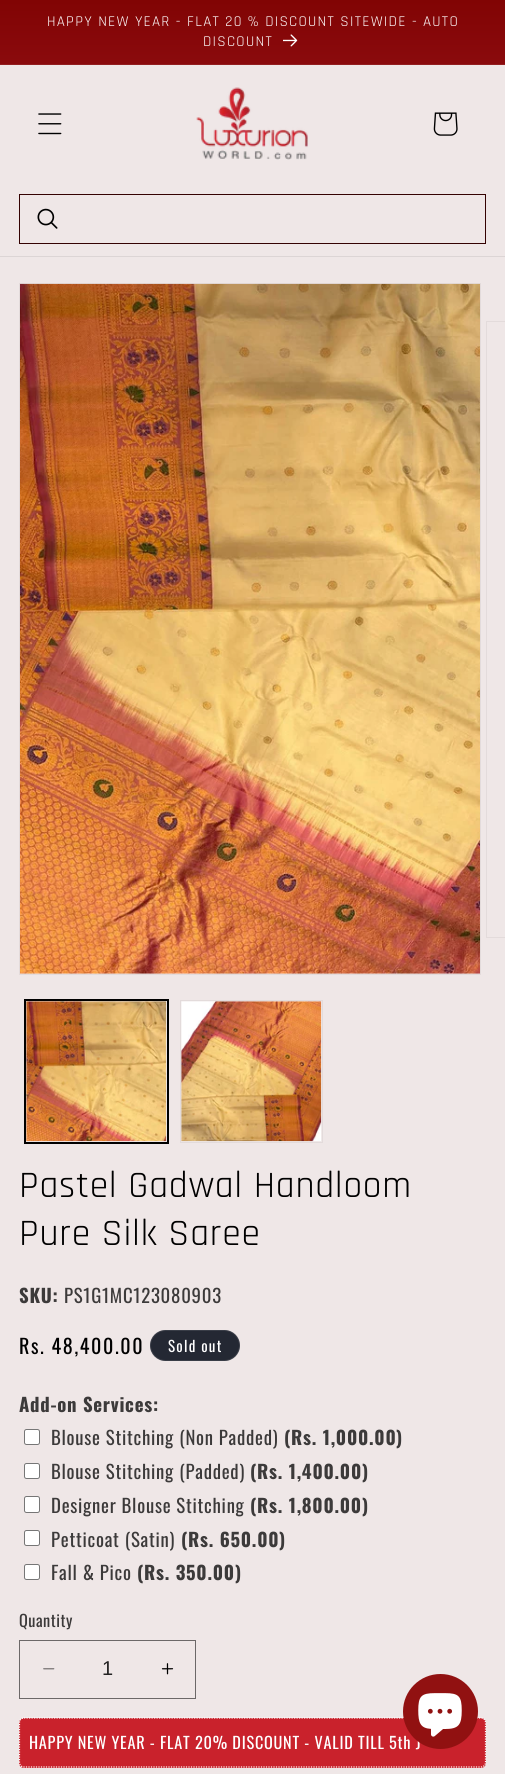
#include <cairo/cairo.h>
#include <math.h>
#include <stddef.h>


static void draw_spaced(cairo_t *cr, double x, double y, const char *s, double letter, double word) {
  cairo_move_to(cr, x, y);
  while (*s) {
    char ch[5] = {0};
    int n = 0;
    do ch[n++] = *s++; while ((*s & 0xC0) == 0x80);
    cairo_show_text(cr, ch);
    cairo_rel_move_to(cr, letter + word * (*ch == ' '), 0);
  }
}

static void rounded_rect(cairo_t *cr, double x, double y, double w, double h, double r) {
  cairo_new_sub_path(cr);
  cairo_arc(cr, x + w - r, y + h - r, r, 0, M_PI / 2);
  cairo_arc(cr, x + r, y + h - r, r, M_PI / 2, M_PI);
  cairo_arc(cr, x + r, y + r, r, M_PI, 1.5 * M_PI);
  cairo_arc(cr, x + w - r, y + r, r, 1.5 * M_PI, 2 * M_PI);
  cairo_close_path(cr);
}

static void draw_image(cairo_t *cr, const char *path, double x, double y, double w, double h) {
  cairo_surface_t *image = cairo_image_surface_create_from_png(path);
  cairo_save(cr);
  cairo_set_source_surface(cr, image, x, y);
  cairo_rectangle(cr, x, y, w, h);
  cairo_fill(cr);
  cairo_restore(cr);
  cairo_surface_destroy(image);
}

static void draw(cairo_t *cr) {
  cairo_pattern_t *gradient;
  cairo_set_source_rgb(cr, 239 / 255.0, 231 / 255.0, 231 / 255.0);
  cairo_paint(cr);
  gradient = cairo_pattern_create_linear(252, 0, 253, 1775);
  cairo_pattern_add_color_stop_rgba(gradient, 0, 129 / 255.0, 4 / 255.0, 4 / 255.0, 1);
  cairo_pattern_add_color_stop_rgba(gradient, 0.49, 254 / 255.0, 91 / 255.0, 124 / 255.0, 1);
  cairo_pattern_add_color_stop_rgba(gradient, 1, 1, 140 / 255.0, 162 / 255.0, 1);
  cairo_set_source(cr, gradient);
  cairo_pattern_destroy(gradient);
  cairo_rectangle(cr, 0, 0, 505, 64);
  cairo_fill(cr);
  cairo_set_source_rgb(cr, 147 / 255.0, 30 / 255.0, 32 / 255.0);
  cairo_rectangle(cr, 0, 64, 505, 1);
  cairo_fill(cr);
  draw_image(cr, "images/1.png", 283, 34, 15, 13);
  cairo_set_source_rgb(cr, 220 / 255.0, 213 / 255.0, 213 / 255.0);
  cairo_rectangle(cr, 0, 256, 505, 1);
  cairo_fill(cr);
  draw_image(cr, "images/2.png", 38, 113, 24, 22);
  draw_image(cr, "images/3.png", 196, 87, 112, 73);
  draw_image(cr, "images/4.png", 433, 112, 25, 24);
  draw_image(cr, "images/5.png", 37, 208, 21, 21);
  cairo_rectangle(cr, 19.5, 194.5, 466, 49);
  cairo_set_source_rgb(cr, 52 / 255.0, 2 / 255.0, 2 / 255.0);
  cairo_set_line_width(cr, 1);
  cairo_stroke(cr);
  cairo_rectangle(cr, 19.5, 283.5, 461, 691);
  cairo_set_source_rgb(cr, 227 / 255.0, 219 / 255.0, 219 / 255.0);
  cairo_stroke(cr);
  draw_image(cr, "images/6.png", 20, 283, 460, 691);
  cairo_rectangle(cr, 486.5, 321.5, 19, 616);
  cairo_stroke(cr);
  cairo_rectangle(cr, 24.5, 999.5, 144, 144);
  cairo_set_source_rgb(cr, 0, 0, 0);
  cairo_stroke(cr);
  cairo_rectangle(cr, 25.5, 1000.5, 142, 142);
  cairo_stroke(cr);
  draw_image(cr, "images/7.png", 26, 1001, 141, 141);
  cairo_rectangle(cr, 180.5, 1000.5, 142, 142);
  cairo_set_source_rgb(cr, 227 / 255.0, 219 / 255.0, 219 / 255.0);
  cairo_stroke(cr);
  draw_image(cr, "images/8.png", 181, 1001, 141, 141);
  cairo_set_source_rgb(cr, 36 / 255.0, 40 / 255.0, 51 / 255.0);
  rounded_rect(cr, 150, 1330, 90, 31, 15.5);
  cairo_fill(cr);
  rounded_rect(cr, 150.5, 1330.5, 89, 30, 15);
  cairo_set_source_rgba(cr, 1, 1, 1, 0.1);
  cairo_stroke(cr);
  cairo_set_source_rgb(cr, 1, 1, 1);
  rounded_rect(cr, 24.5, 1429.5, 15, 15, 2);
  cairo_fill_preserve(cr);
  cairo_set_source_rgb(cr, 118 / 255.0, 118 / 255.0, 118 / 255.0);
  cairo_stroke(cr);
  cairo_set_source_rgb(cr, 1, 1, 1);
  rounded_rect(cr, 24.5, 1463.5, 15, 15, 2);
  cairo_fill_preserve(cr);
  cairo_set_source_rgb(cr, 118 / 255.0, 118 / 255.0, 118 / 255.0);
  cairo_stroke(cr);
  cairo_set_source_rgb(cr, 1, 1, 1);
  rounded_rect(cr, 24.5, 1496.5, 15, 16, 2);
  cairo_fill_preserve(cr);
  cairo_set_source_rgb(cr, 118 / 255.0, 118 / 255.0, 118 / 255.0);
  cairo_stroke(cr);
  cairo_set_source_rgb(cr, 1, 1, 1);
  rounded_rect(cr, 24.5, 1530.5, 15, 15, 2);
  cairo_fill_preserve(cr);
  cairo_set_source_rgb(cr, 118 / 255.0, 118 / 255.0, 118 / 255.0);
  cairo_stroke(cr);
  cairo_set_source_rgb(cr, 1, 1, 1);
  rounded_rect(cr, 24.5, 1564.5, 15, 15, 2);
  cairo_fill_preserve(cr);
  cairo_set_source_rgb(cr, 118 / 255.0, 118 / 255.0, 118 / 255.0);
  cairo_stroke(cr);
  draw_image(cr, "images/9.png", 43, 1668, 12, 2);
  draw_image(cr, "images/10.png", 161, 1663, 13, 12);
  cairo_rectangle(cr, 19.5, 1640.5, 176, 58);
  cairo_set_source_rgb(cr, 108 / 255.0, 104 / 255.0, 104 / 255.0);
  cairo_stroke(cr);
  cairo_set_source_rgb(cr, 201 / 255.0, 34 / 255.0, 44 / 255.0);
  rounded_rect(cr, 19, 1718, 467, 50, 5);
  cairo_fill(cr);
  cairo_new_path(cr);
  cairo_move_to(cr, 24, 1718);
  cairo_line_to(cr, 481, 1718);
  cairo_curve_to(cr, 483.5, 1718, 485.5, 1720, 485.5, 1722.5);
  cairo_line_to(cr, 485.5, 1762.5);
  cairo_curve_to(cr, 485.5, 1765, 483.5, 1767, 481, 1767);
  cairo_line_to(cr, 24, 1767);
  cairo_curve_to(cr, 21.5, 1767, 19.5, 1765, 19.5, 1762.5);
  cairo_line_to(cr, 19.5, 1722.5);
  cairo_curve_to(cr, 19.5, 1720, 21.5, 1718, 24, 1718);
  cairo_close_path(cr);
  cairo_set_source_rgb(cr, 1, 1, 1);
  cairo_set_line_width(cr, 1.2);
  cairo_set_dash(cr, (double[]){1.25, 1.25}, 2, 0);
  cairo_stroke(cr);
  cairo_select_font_face(cr, "Rajdhani", CAIRO_FONT_SLANT_NORMAL, CAIRO_FONT_WEIGHT_NORMAL);
  cairo_set_font_size(cr, 15);
  draw_spaced(cr, 47, 26, "HAPPY NEW YEAR - FLAT 20 % DISCOUNT SITEWIDE - AUTO", 1.25, 0);
  draw_spaced(cr, 203, 46, "DISCOUNT", 1.25, 0);
  cairo_set_font_size(cr, 37.5);
  cairo_set_source_rgb(cr, 0, 0, 0);
  draw_spaced(cr, 19, 1197, "Pastel Gadwal Handloom", 0.75, 0);
  draw_spaced(cr, 19, 1245, "Pure Silk Saree", 0.75, 0);
  cairo_select_font_face(cr, "Oswald", CAIRO_FONT_SLANT_NORMAL, CAIRO_FONT_WEIGHT_BOLD);
  cairo_set_font_size(cr, 18.75);
  cairo_set_source_rgb(cr, 60 / 255.0, 58 / 255.0, 58 / 255.0);
  draw_spaced(cr, 19, 1303, "SKU:", 0.75, 0);
  cairo_select_font_face(cr, "Oswald", CAIRO_FONT_SLANT_NORMAL, CAIRO_FONT_WEIGHT_NORMAL);
  draw_spaced(cr, 64, 1303, "PS1G1MC123080903", 0.75, 0);
  cairo_set_font_size(cr, 20);
  cairo_set_source_rgb(cr, 0, 0, 0);
  draw_spaced(cr, 19, 1354, "Rs. 48,400.00", 1.6, 0);
  cairo_set_font_size(cr, 15);
  cairo_set_source_rgb(cr, 1, 1, 1);
  draw_spaced(cr, 168, 1352, "Sold out", 1.25, 0);
  cairo_select_font_face(cr, "Oswald", CAIRO_FONT_SLANT_NORMAL, CAIRO_FONT_WEIGHT_BOLD);
  cairo_set_font_size(cr, 18.75);
  cairo_set_source_rgb(cr, 60 / 255.0, 58 / 255.0, 58 / 255.0);
  draw_spaced(cr, 19, 1412, "Add-on Services:", 0.75, 0);
  cairo_select_font_face(cr, "Oswald", CAIRO_FONT_SLANT_NORMAL, CAIRO_FONT_WEIGHT_NORMAL);
  draw_spaced(cr, 51, 1445, "Blouse Stitching (Non Padded)", 0.75, 0);
  cairo_select_font_face(cr, "Oswald", CAIRO_FONT_SLANT_NORMAL, CAIRO_FONT_WEIGHT_BOLD);
  draw_spaced(cr, 284, 1445, "(Rs. 1,000.00", 0.75, 0);
  draw_spaced(cr, 396, 1445, ")", 0.75, 0);
  cairo_select_font_face(cr, "Oswald", CAIRO_FONT_SLANT_NORMAL, CAIRO_FONT_WEIGHT_NORMAL);
  draw_spaced(cr, 51, 1479, "Blouse Stitching (Padded)", 0.75, 0);
  cairo_select_font_face(cr, "Oswald", CAIRO_FONT_SLANT_NORMAL, CAIRO_FONT_WEIGHT_BOLD);
  draw_spaced(cr, 250, 1479, "(Rs. 1,400.00", 0.75, 0);
  draw_spaced(cr, 362, 1479, ")", 0.75, 0);
  cairo_select_font_face(cr, "Oswald", CAIRO_FONT_SLANT_NORMAL, CAIRO_FONT_WEIGHT_NORMAL);
  draw_spaced(cr, 51, 1513, "Designer Blouse Stitching", 0.75, 0);
  cairo_select_font_face(cr, "Oswald", CAIRO_FONT_SLANT_NORMAL, CAIRO_FONT_WEIGHT_BOLD);
  draw_spaced(cr, 250, 1513, "(Rs. 1,800.00", 0.75, 0);
  draw_spaced(cr, 362, 1513, ")", 0.75, 0);
  cairo_select_font_face(cr, "Oswald", CAIRO_FONT_SLANT_NORMAL, CAIRO_FONT_WEIGHT_NORMAL);
  draw_spaced(cr, 51, 1547, "Petticoat (Satin)", 0.75, 0);
  cairo_select_font_face(cr, "Oswald", CAIRO_FONT_SLANT_NORMAL, CAIRO_FONT_WEIGHT_BOLD);
  draw_spaced(cr, 181, 1547, "(Rs. 650.00", 0.75, 0);
  draw_spaced(cr, 279, 1547, ")", 0.75, 0);
  cairo_select_font_face(cr, "Oswald", CAIRO_FONT_SLANT_NORMAL, CAIRO_FONT_WEIGHT_NORMAL);
  draw_spaced(cr, 51, 1580, "Fall & Pico", 0.75, 0);
  cairo_select_font_face(cr, "Oswald", CAIRO_FONT_SLANT_NORMAL, CAIRO_FONT_WEIGHT_BOLD);
  draw_spaced(cr, 137, 1580, "(Rs. 350.00", 0.75, 0);
  draw_spaced(cr, 235, 1580, ")", 0.75, 0);
  cairo_select_font_face(cr, "Oswald", CAIRO_FONT_SLANT_NORMAL, CAIRO_FONT_WEIGHT_NORMAL);
  cairo_set_font_size(cr, 16.25);
  draw_spaced(cr, 19, 1627, "Quantity", 0.5, 0);
  cairo_select_font_face(cr, "Liberation Sans", CAIRO_FONT_SLANT_NORMAL, CAIRO_FONT_WEIGHT_NORMAL);
  cairo_set_font_size(cr, 20);
  cairo_set_source_rgb(cr, 36 / 255.0, 35 / 255.0, 35 / 255.0);
  cairo_move_to(cr, 102, 1675);
  cairo_show_text(cr, "1");
  cairo_select_font_face(cr, "Oswald", CAIRO_FONT_SLANT_NORMAL, CAIRO_FONT_WEIGHT_NORMAL);
  cairo_set_font_size(cr, 16.25);
  cairo_set_source_rgb(cr, 1, 1, 1);
  draw_spaced(cr, 29, 1749, "HAPPY NEW YEAR - FLAT 20% DISCOUNT - VALID TILL 5th J", 0.75, 0);
  cairo_set_source_rgb(cr, 145 / 255.0, 17 / 255.0, 17 / 255.0);
  cairo_new_path(cr);
  cairo_arc(cr, 440.5, 1711.5, 37.5, 0, 2 * M_PI);
  cairo_fill(cr);
  draw_image(cr, "images/11.png", 418, 1693, 44, 44);
}

int main(void) {
  cairo_surface_t *surface = cairo_image_surface_create(CAIRO_FORMAT_RGB24, 505, 1774);
  cairo_t *cr = cairo_create(surface);
  cairo_font_options_t *options = cairo_font_options_create();
  cairo_font_options_set_hint_metrics(options, CAIRO_HINT_METRICS_OFF);
  cairo_font_options_set_hint_style(options, CAIRO_HINT_STYLE_NONE);
  cairo_set_font_options(cr, options);
  cairo_set_miter_limit(cr, 4);
  draw(cr);
  cairo_surface_write_to_png(surface, "out.png");
  cairo_font_options_destroy(options);
  cairo_destroy(cr);
  cairo_surface_destroy(surface);
  return 0;
}
